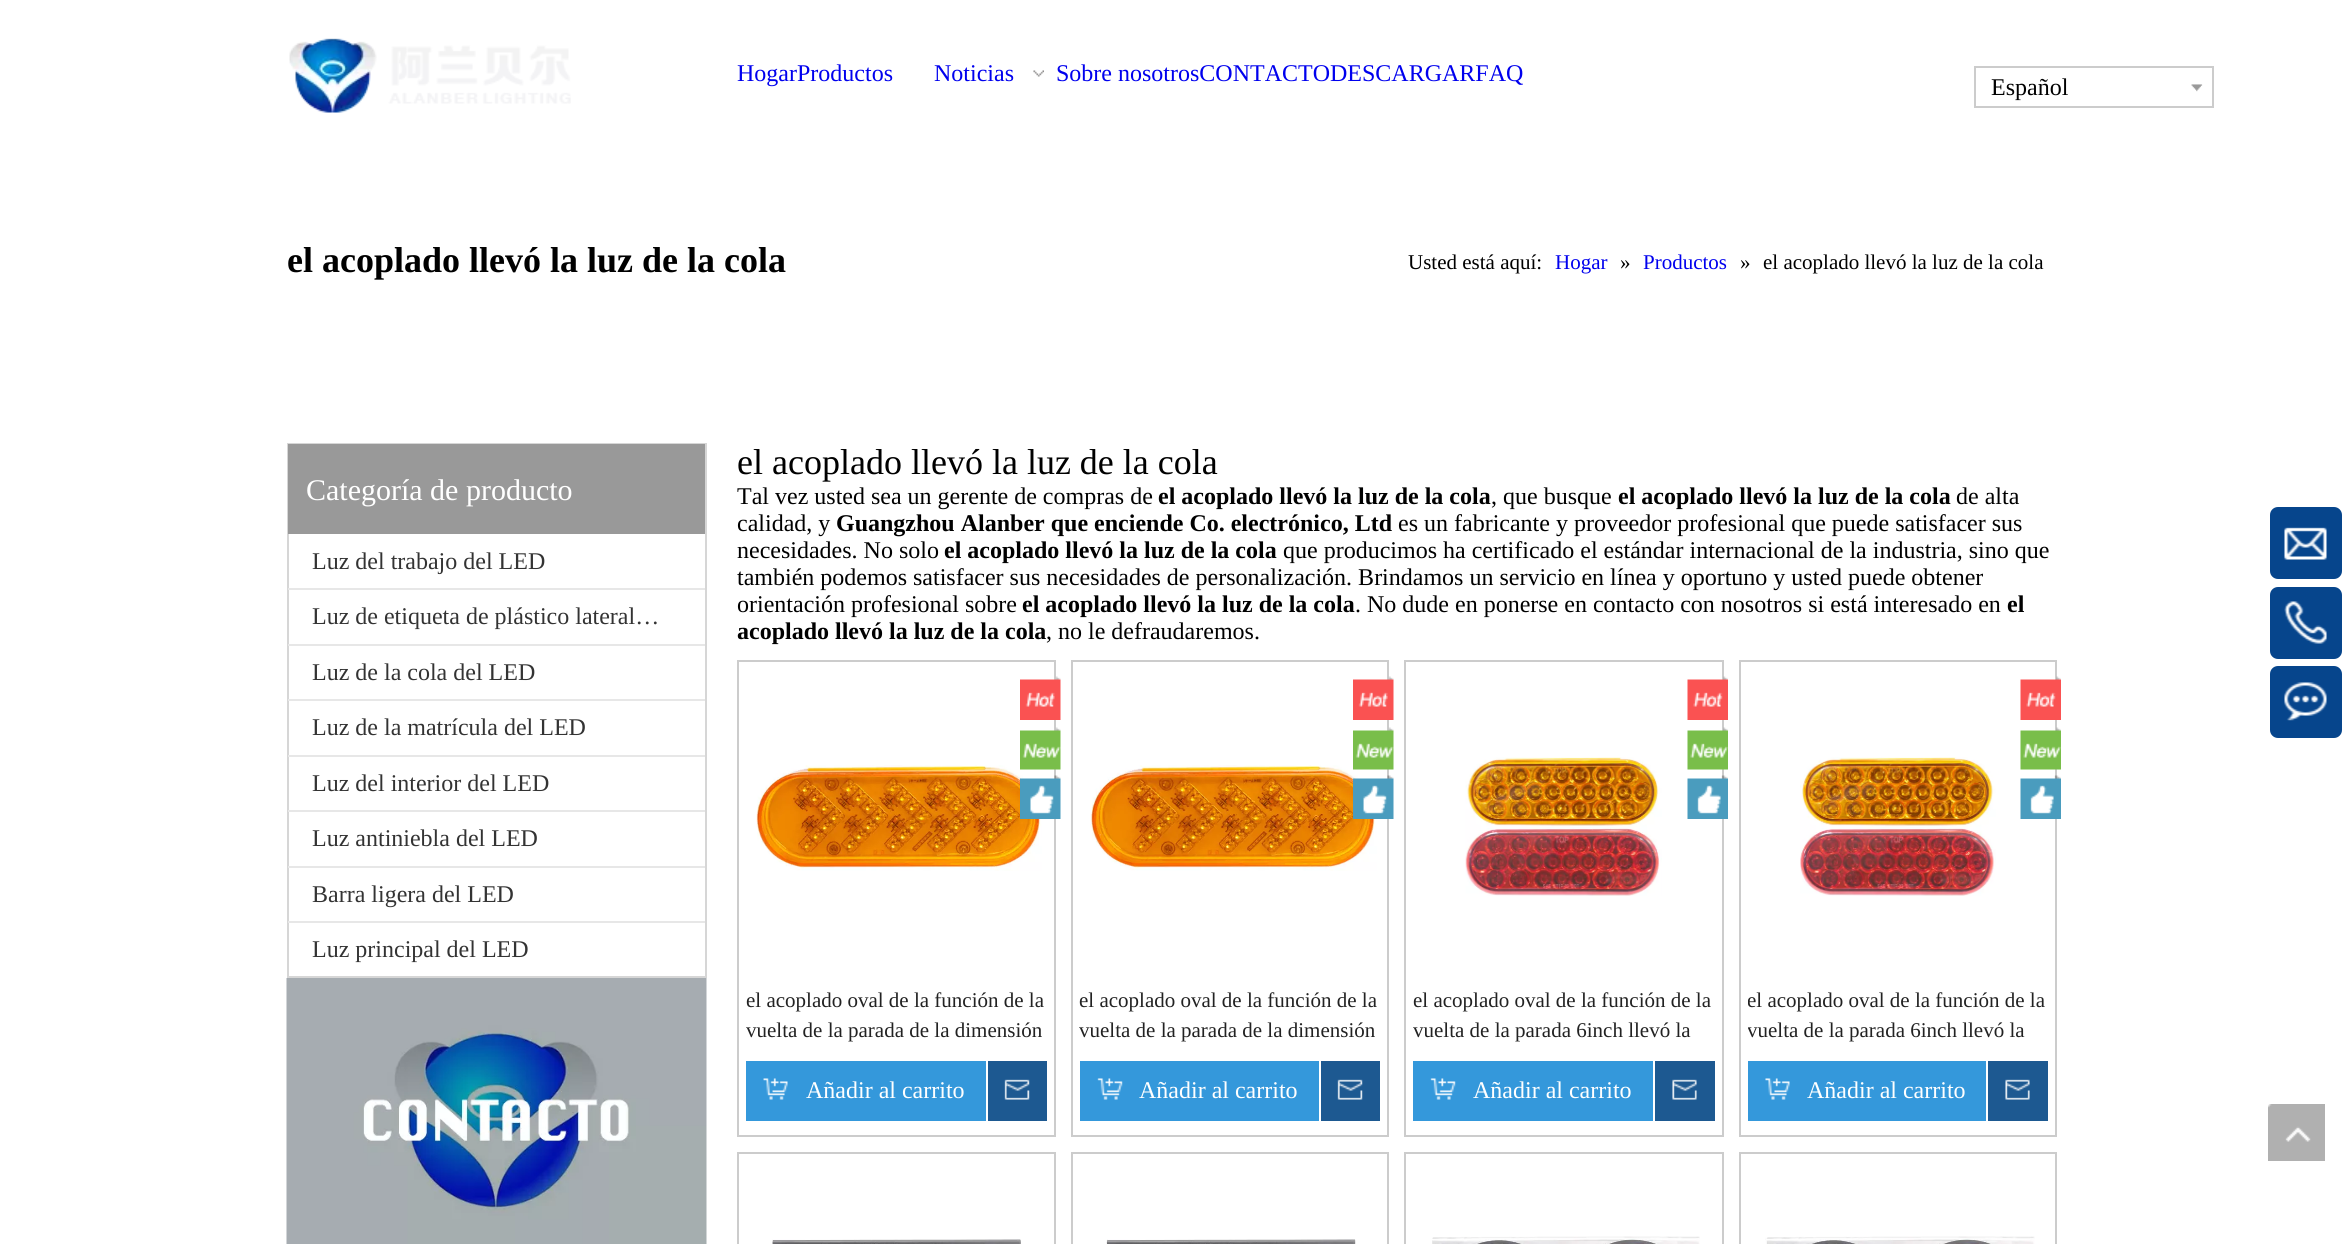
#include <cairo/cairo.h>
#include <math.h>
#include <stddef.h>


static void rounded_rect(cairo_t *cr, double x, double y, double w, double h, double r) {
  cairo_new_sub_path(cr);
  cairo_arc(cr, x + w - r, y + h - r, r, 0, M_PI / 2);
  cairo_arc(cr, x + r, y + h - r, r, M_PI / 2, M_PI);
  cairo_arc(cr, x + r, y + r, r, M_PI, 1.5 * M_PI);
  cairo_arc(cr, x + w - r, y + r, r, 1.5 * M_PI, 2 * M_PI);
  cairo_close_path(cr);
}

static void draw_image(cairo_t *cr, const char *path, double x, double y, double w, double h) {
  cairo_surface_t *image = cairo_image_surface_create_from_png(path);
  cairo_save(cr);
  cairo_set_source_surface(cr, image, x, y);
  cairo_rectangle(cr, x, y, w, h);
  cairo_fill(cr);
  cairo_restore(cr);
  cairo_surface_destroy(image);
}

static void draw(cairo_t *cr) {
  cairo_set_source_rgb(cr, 1, 1, 1);
  cairo_paint(cr);
  draw_image(cr, "images/1.png", 289, 38, 282, 75);
  draw_image(cr, "images/2.png", 1033, 70, 11, 7);
  cairo_rectangle(cr, 1975, 67, 238, 40);
  cairo_set_source_rgb(cr, 204 / 255.0, 204 / 255.0, 204 / 255.0);
  cairo_stroke(cr);
  draw_image(cr, "images/3.png", 2191, 84, 12, 8);
  cairo_rectangle(cr, 288, 444, 418, 533);
  cairo_set_source_rgb(cr, 214 / 255.0, 214 / 255.0, 214 / 255.0);
  cairo_stroke(cr);
  cairo_set_source_rgb(cr, 153 / 255.0, 153 / 255.0, 153 / 255.0);
  cairo_rectangle(cr, 288, 444, 417, 90);
  cairo_fill(cr);
  cairo_set_source_rgb(cr, 231 / 255.0, 231 / 255.0, 231 / 255.0);
  cairo_rectangle(cr, 288, 588, 417, 2);
  cairo_fill(cr);
  cairo_rectangle(cr, 288, 644, 417, 2);
  cairo_fill(cr);
  cairo_rectangle(cr, 288, 699, 417, 2);
  cairo_fill(cr);
  cairo_rectangle(cr, 288, 755, 417, 2);
  cairo_fill(cr);
  cairo_rectangle(cr, 288, 810, 417, 2);
  cairo_fill(cr);
  cairo_rectangle(cr, 288, 866, 417, 2);
  cairo_fill(cr);
  cairo_rectangle(cr, 288, 921, 417, 2);
  cairo_fill(cr);
  draw_image(cr, "images/4.png", 286, 978, 421, 266);
  cairo_rectangle(cr, 738, 661, 317, 475);
  cairo_set_source_rgb(cr, 204 / 255.0, 204 / 255.0, 204 / 255.0);
  cairo_stroke(cr);
  draw_image(cr, "images/5.png", 1020, 676, 41, 44);
  draw_image(cr, "images/8.png", 756, 765, 286, 106);
  draw_image(cr, "images/6.png", 1020, 727, 41, 43);
  draw_image(cr, "images/7.png", 1020, 775, 41, 44);
  cairo_set_source_rgb(cr, 52 / 255.0, 152 / 255.0, 219 / 255.0);
  cairo_rectangle(cr, 746, 1061, 240, 60);
  cairo_fill(cr);
  draw_image(cr, "images/9.png", 763, 1078, 25, 22);
  cairo_set_source_rgb(cr, 29 / 255.0, 89 / 255.0, 145 / 255.0);
  cairo_rectangle(cr, 988, 1061, 59, 60);
  cairo_fill(cr);
  draw_image(cr, "images/10.png", 1004, 1079, 26, 21);
  cairo_rectangle(cr, 1072, 661, 316, 475);
  cairo_set_source_rgb(cr, 204 / 255.0, 204 / 255.0, 204 / 255.0);
  cairo_stroke(cr);
  draw_image(cr, "images/11.png", 1353, 676, 41, 44);
  draw_image(cr, "images/14.png", 1090, 765, 287, 106);
  draw_image(cr, "images/12.png", 1353, 727, 41, 43);
  draw_image(cr, "images/13.png", 1353, 775, 41, 44);
  cairo_set_source_rgb(cr, 52 / 255.0, 152 / 255.0, 219 / 255.0);
  cairo_rectangle(cr, 1080, 1061, 239, 60);
  cairo_fill(cr);
  draw_image(cr, "images/15.png", 1097, 1078, 26, 22);
  cairo_set_source_rgb(cr, 29 / 255.0, 89 / 255.0, 145 / 255.0);
  cairo_rectangle(cr, 1321, 1061, 59, 60);
  cairo_fill(cr);
  draw_image(cr, "images/16.png", 1337, 1079, 26, 21);
  cairo_rectangle(cr, 1405, 661, 318, 475);
  cairo_set_source_rgb(cr, 204 / 255.0, 204 / 255.0, 204 / 255.0);
  cairo_stroke(cr);
  draw_image(cr, "images/17.png", 1465, 757, 197, 139);
  draw_image(cr, "images/18.png", 1687, 676, 41, 44);
  draw_image(cr, "images/19.png", 1687, 727, 41, 43);
  draw_image(cr, "images/20.png", 1687, 775, 41, 44);
  cairo_set_source_rgb(cr, 52 / 255.0, 152 / 255.0, 219 / 255.0);
  cairo_rectangle(cr, 1413, 1061, 240, 60);
  cairo_fill(cr);
  draw_image(cr, "images/21.png", 1430, 1078, 26, 22);
  cairo_set_source_rgb(cr, 29 / 255.0, 89 / 255.0, 145 / 255.0);
  cairo_rectangle(cr, 1655, 1061, 60, 60);
  cairo_fill(cr);
  draw_image(cr, "images/22.png", 1672, 1079, 25, 21);
  cairo_rectangle(cr, 1740, 661, 316, 475);
  cairo_set_source_rgb(cr, 204 / 255.0, 204 / 255.0, 204 / 255.0);
  cairo_stroke(cr);
  draw_image(cr, "images/23.png", 1800, 757, 196, 139);
  draw_image(cr, "images/18.png", 2020, 676, 41, 44);
  draw_image(cr, "images/19.png", 2020, 727, 41, 43);
  draw_image(cr, "images/20.png", 2020, 775, 41, 44);
  cairo_set_source_rgb(cr, 52 / 255.0, 152 / 255.0, 219 / 255.0);
  cairo_rectangle(cr, 1748, 1061, 238, 60);
  cairo_fill(cr);
  draw_image(cr, "images/24.png", 1765, 1078, 25, 22);
  cairo_set_source_rgb(cr, 29 / 255.0, 89 / 255.0, 145 / 255.0);
  cairo_rectangle(cr, 1988, 1061, 60, 60);
  cairo_fill(cr);
  draw_image(cr, "images/22.png", 2005, 1079, 25, 21);
  cairo_rectangle(cr, 738, 1153, 317, 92);
  cairo_set_source_rgb(cr, 204 / 255.0, 204 / 255.0, 204 / 255.0);
  cairo_stroke(cr);
  draw_image(cr, "images/25.png", 772, 1239, 249, 5);
  cairo_rectangle(cr, 1072, 1153, 316, 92);
  cairo_stroke(cr);
  draw_image(cr, "images/26.png", 1106, 1239, 250, 5);
  cairo_rectangle(cr, 1405, 1153, 318, 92);
  cairo_stroke(cr);
  draw_image(cr, "images/27.png", 1432, 1236, 268, 8);
  cairo_rectangle(cr, 1740, 1153, 316, 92);
  cairo_stroke(cr);
  draw_image(cr, "images/28.png", 1765, 1236, 270, 8);
  cairo_set_source_rgb(cr, 6 / 255.0, 69 / 255.0, 140 / 255.0);
  rounded_rect(cr, 2270, 507, 72, 72, 8);
  cairo_fill(cr);
  draw_image(cr, "images/29.png", 2284, 527, 43, 33);
  rounded_rect(cr, 2270, 587, 72, 72, 8);
  cairo_fill(cr);
  draw_image(cr, "images/30.png", 2284, 601, 43, 43);
  rounded_rect(cr, 2270, 666, 72, 72, 8);
  cairo_fill(cr);
  draw_image(cr, "images/31.png", 2284, 682, 43, 39);
  draw_image(cr, "images/32.png", 2268, 1104, 57, 57);
  cairo_select_font_face(cr, "Liberation Serif", CAIRO_FONT_SLANT_NORMAL, CAIRO_FONT_WEIGHT_NORMAL);
  cairo_set_font_size(cr, 24);
  cairo_set_source_rgb(cr, 0, 0, 238 / 255.0);
  cairo_move_to(cr, 737, 81);
  cairo_show_text(cr, "HogarProductos");
  cairo_move_to(cr, 934, 81);
  cairo_show_text(cr, "Noticias");
  cairo_move_to(cr, 1056, 81);
  cairo_show_text(cr, "Sobre nosotrosCONTACTODESCARGARFAQ");
  cairo_set_source_rgb(cr, 0, 0, 0);
  cairo_move_to(cr, 1991, 95);
  cairo_show_text(cr, "Español");
  cairo_select_font_face(cr, "Liberation Serif", CAIRO_FONT_SLANT_NORMAL, CAIRO_FONT_WEIGHT_BOLD);
  cairo_set_font_size(cr, 36);
  cairo_move_to(cr, 287, 272);
  cairo_show_text(cr, "el acoplado llevó la luz de la cola");
  cairo_select_font_face(cr, "Liberation Serif", CAIRO_FONT_SLANT_NORMAL, CAIRO_FONT_WEIGHT_NORMAL);
  cairo_set_font_size(cr, 21);
  cairo_move_to(cr, 1408, 269);
  cairo_show_text(cr, "Usted está aquí:");
  cairo_set_source_rgb(cr, 0, 0, 238 / 255.0);
  cairo_move_to(cr, 1555, 269);
  cairo_show_text(cr, "Hogar");
  cairo_set_source_rgb(cr, 0, 0, 0);
  cairo_move_to(cr, 1620, 269);
  cairo_show_text(cr, "»");
  cairo_set_source_rgb(cr, 0, 0, 238 / 255.0);
  cairo_move_to(cr, 1643, 269);
  cairo_show_text(cr, "Productos");
  cairo_set_source_rgb(cr, 0, 0, 0);
  cairo_move_to(cr, 1740, 269);
  cairo_show_text(cr, "»");
  cairo_move_to(cr, 1763, 269);
  cairo_show_text(cr, "el acoplado llevó la luz de la cola");
  cairo_set_font_size(cr, 30);
  cairo_set_source_rgb(cr, 1, 1, 1);
  cairo_move_to(cr, 306, 500);
  cairo_show_text(cr, "Categoría de producto");
  cairo_set_font_size(cr, 24);
  cairo_set_source_rgb(cr, 51 / 255.0, 51 / 255.0, 51 / 255.0);
  cairo_move_to(cr, 312, 569);
  cairo_show_text(cr, "Luz del trabajo del LED");
  cairo_move_to(cr, 312, 624);
  cairo_show_text(cr, "Luz de etiqueta de plástico lateral…");
  cairo_move_to(cr, 312, 680);
  cairo_show_text(cr, "Luz de la cola del LED");
  cairo_move_to(cr, 312, 735);
  cairo_show_text(cr, "Luz de la matrícula del LED");
  cairo_move_to(cr, 312, 791);
  cairo_show_text(cr, "Luz del interior del LED");
  cairo_move_to(cr, 312, 846);
  cairo_show_text(cr, "Luz antiniebla del LED");
  cairo_move_to(cr, 312, 902);
  cairo_show_text(cr, "Barra ligera del LED");
  cairo_move_to(cr, 312, 957);
  cairo_show_text(cr, "Luz principal del LED");
  cairo_set_font_size(cr, 36);
  cairo_set_source_rgb(cr, 0, 0, 0);
  cairo_move_to(cr, 737, 474);
  cairo_show_text(cr, "el acoplado llevó la luz de la cola");
  cairo_set_font_size(cr, 24);
  cairo_move_to(cr, 737, 504);
  cairo_show_text(cr, "Tal vez usted sea un gerente de compras de");
  cairo_select_font_face(cr, "Liberation Serif", CAIRO_FONT_SLANT_NORMAL, CAIRO_FONT_WEIGHT_BOLD);
  cairo_move_to(cr, 1158, 504);
  cairo_show_text(cr, "el acoplado llevó la luz de la cola");
  cairo_select_font_face(cr, "Liberation Serif", CAIRO_FONT_SLANT_NORMAL, CAIRO_FONT_WEIGHT_NORMAL);
  cairo_move_to(cr, 1491, 504);
  cairo_show_text(cr, ", que busque");
  cairo_select_font_face(cr, "Liberation Serif", CAIRO_FONT_SLANT_NORMAL, CAIRO_FONT_WEIGHT_BOLD);
  cairo_move_to(cr, 1618, 504);
  cairo_show_text(cr, "el acoplado llevó la luz de la cola");
  cairo_select_font_face(cr, "Liberation Serif", CAIRO_FONT_SLANT_NORMAL, CAIRO_FONT_WEIGHT_NORMAL);
  cairo_move_to(cr, 1956, 504);
  cairo_show_text(cr, "de alta");
  cairo_move_to(cr, 737, 531);
  cairo_show_text(cr, "calidad, y");
  cairo_select_font_face(cr, "Liberation Serif", CAIRO_FONT_SLANT_NORMAL, CAIRO_FONT_WEIGHT_BOLD);
  cairo_move_to(cr, 836, 531);
  cairo_show_text(cr, "Guangzhou Alanber que enciende Co. electrónico, Ltd");
  cairo_select_font_face(cr, "Liberation Serif", CAIRO_FONT_SLANT_NORMAL, CAIRO_FONT_WEIGHT_NORMAL);
  cairo_move_to(cr, 1398, 531);
  cairo_show_text(cr, "es un fabricante y proveedor profesional que puede satisfacer sus");
  cairo_move_to(cr, 737, 558);
  cairo_show_text(cr, "necesidades. No solo");
  cairo_select_font_face(cr, "Liberation Serif", CAIRO_FONT_SLANT_NORMAL, CAIRO_FONT_WEIGHT_BOLD);
  cairo_move_to(cr, 944, 558);
  cairo_show_text(cr, "el acoplado llevó la luz de la cola");
  cairo_select_font_face(cr, "Liberation Serif", CAIRO_FONT_SLANT_NORMAL, CAIRO_FONT_WEIGHT_NORMAL);
  cairo_move_to(cr, 1283, 558);
  cairo_show_text(cr, "que producimos ha certificado el estándar internacional de la industria, sino que");
  cairo_move_to(cr, 737, 585);
  cairo_show_text(cr, "también podemos satisfacer sus necesidades de personalización. Brindamos un servicio en línea y oportuno y usted puede obtener");
  cairo_move_to(cr, 737, 612);
  cairo_show_text(cr, "orientación profesional sobre");
  cairo_select_font_face(cr, "Liberation Serif", CAIRO_FONT_SLANT_NORMAL, CAIRO_FONT_WEIGHT_BOLD);
  cairo_move_to(cr, 1022, 612);
  cairo_show_text(cr, "el acoplado llevó la luz de la cola");
  cairo_select_font_face(cr, "Liberation Serif", CAIRO_FONT_SLANT_NORMAL, CAIRO_FONT_WEIGHT_NORMAL);
  cairo_move_to(cr, 1355, 612);
  cairo_show_text(cr, ". No dude en ponerse en contacto con nosotros si está interesado en");
  cairo_select_font_face(cr, "Liberation Serif", CAIRO_FONT_SLANT_NORMAL, CAIRO_FONT_WEIGHT_BOLD);
  cairo_move_to(cr, 2007, 612);
  cairo_show_text(cr, "el");
  cairo_move_to(cr, 737, 639);
  cairo_show_text(cr, "acoplado llevó la luz de la cola");
  cairo_select_font_face(cr, "Liberation Serif", CAIRO_FONT_SLANT_NORMAL, CAIRO_FONT_WEIGHT_NORMAL);
  cairo_move_to(cr, 1046, 639);
  cairo_show_text(cr, ", no le defraudaremos.");
  cairo_set_font_size(cr, 21);
  cairo_set_source_rgb(cr, 34 / 255.0, 34 / 255.0, 34 / 255.0);
  cairo_move_to(cr, 746, 1007);
  cairo_show_text(cr, "el acoplado oval de la función de la");
  cairo_move_to(cr, 746, 1037);
  cairo_show_text(cr, "vuelta de la parada de la dimensión");
  cairo_set_font_size(cr, 24);
  cairo_set_source_rgb(cr, 1, 1, 1);
  cairo_move_to(cr, 806, 1098);
  cairo_show_text(cr, "Añadir al carrito");
  cairo_set_font_size(cr, 21);
  cairo_set_source_rgb(cr, 34 / 255.0, 34 / 255.0, 34 / 255.0);
  cairo_move_to(cr, 1079, 1007);
  cairo_show_text(cr, "el acoplado oval de la función de la");
  cairo_move_to(cr, 1079, 1037);
  cairo_show_text(cr, "vuelta de la parada de la dimensión");
  cairo_set_font_size(cr, 24);
  cairo_set_source_rgb(cr, 1, 1, 1);
  cairo_move_to(cr, 1139, 1098);
  cairo_show_text(cr, "Añadir al carrito");
  cairo_set_font_size(cr, 21);
  cairo_set_source_rgb(cr, 34 / 255.0, 34 / 255.0, 34 / 255.0);
  cairo_move_to(cr, 1413, 1007);
  cairo_show_text(cr, "el acoplado oval de la función de la");
  cairo_move_to(cr, 1413, 1037);
  cairo_show_text(cr, "vuelta de la parada 6inch llevó la");
  cairo_set_font_size(cr, 24);
  cairo_set_source_rgb(cr, 1, 1, 1);
  cairo_move_to(cr, 1473, 1098);
  cairo_show_text(cr, "Añadir al carrito");
  cairo_save(cr);
  cairo_rectangle(cr, 1748, 986, 300, 60);
  cairo_clip(cr);
  cairo_set_font_size(cr, 21);
  cairo_set_source_rgb(cr, 34 / 255.0, 34 / 255.0, 34 / 255.0);
  cairo_move_to(cr, 1747, 1007);
  cairo_show_text(cr, "el acoplado oval de la función de la");
  cairo_move_to(cr, 1747, 1037);
  cairo_show_text(cr, "vuelta de la parada 6inch llevó la");
  cairo_restore(cr);
  cairo_move_to(cr, 1807, 1098);
  cairo_show_text(cr, "Añadir al carrito");
}

int main(void) {
  cairo_surface_t *surface = cairo_image_surface_create(CAIRO_FORMAT_RGB24, 2343, 1244);
  cairo_t *cr = cairo_create(surface);
  cairo_font_options_t *options = cairo_font_options_create();
  cairo_font_options_set_hint_metrics(options, CAIRO_HINT_METRICS_OFF);
  cairo_font_options_set_hint_style(options, CAIRO_HINT_STYLE_NONE);
  cairo_set_font_options(cr, options);
  cairo_set_miter_limit(cr, 4);
  draw(cr);
  cairo_surface_write_to_png(surface, "out.png");
  cairo_font_options_destroy(options);
  cairo_destroy(cr);
  cairo_surface_destroy(surface);
  return 0;
}
